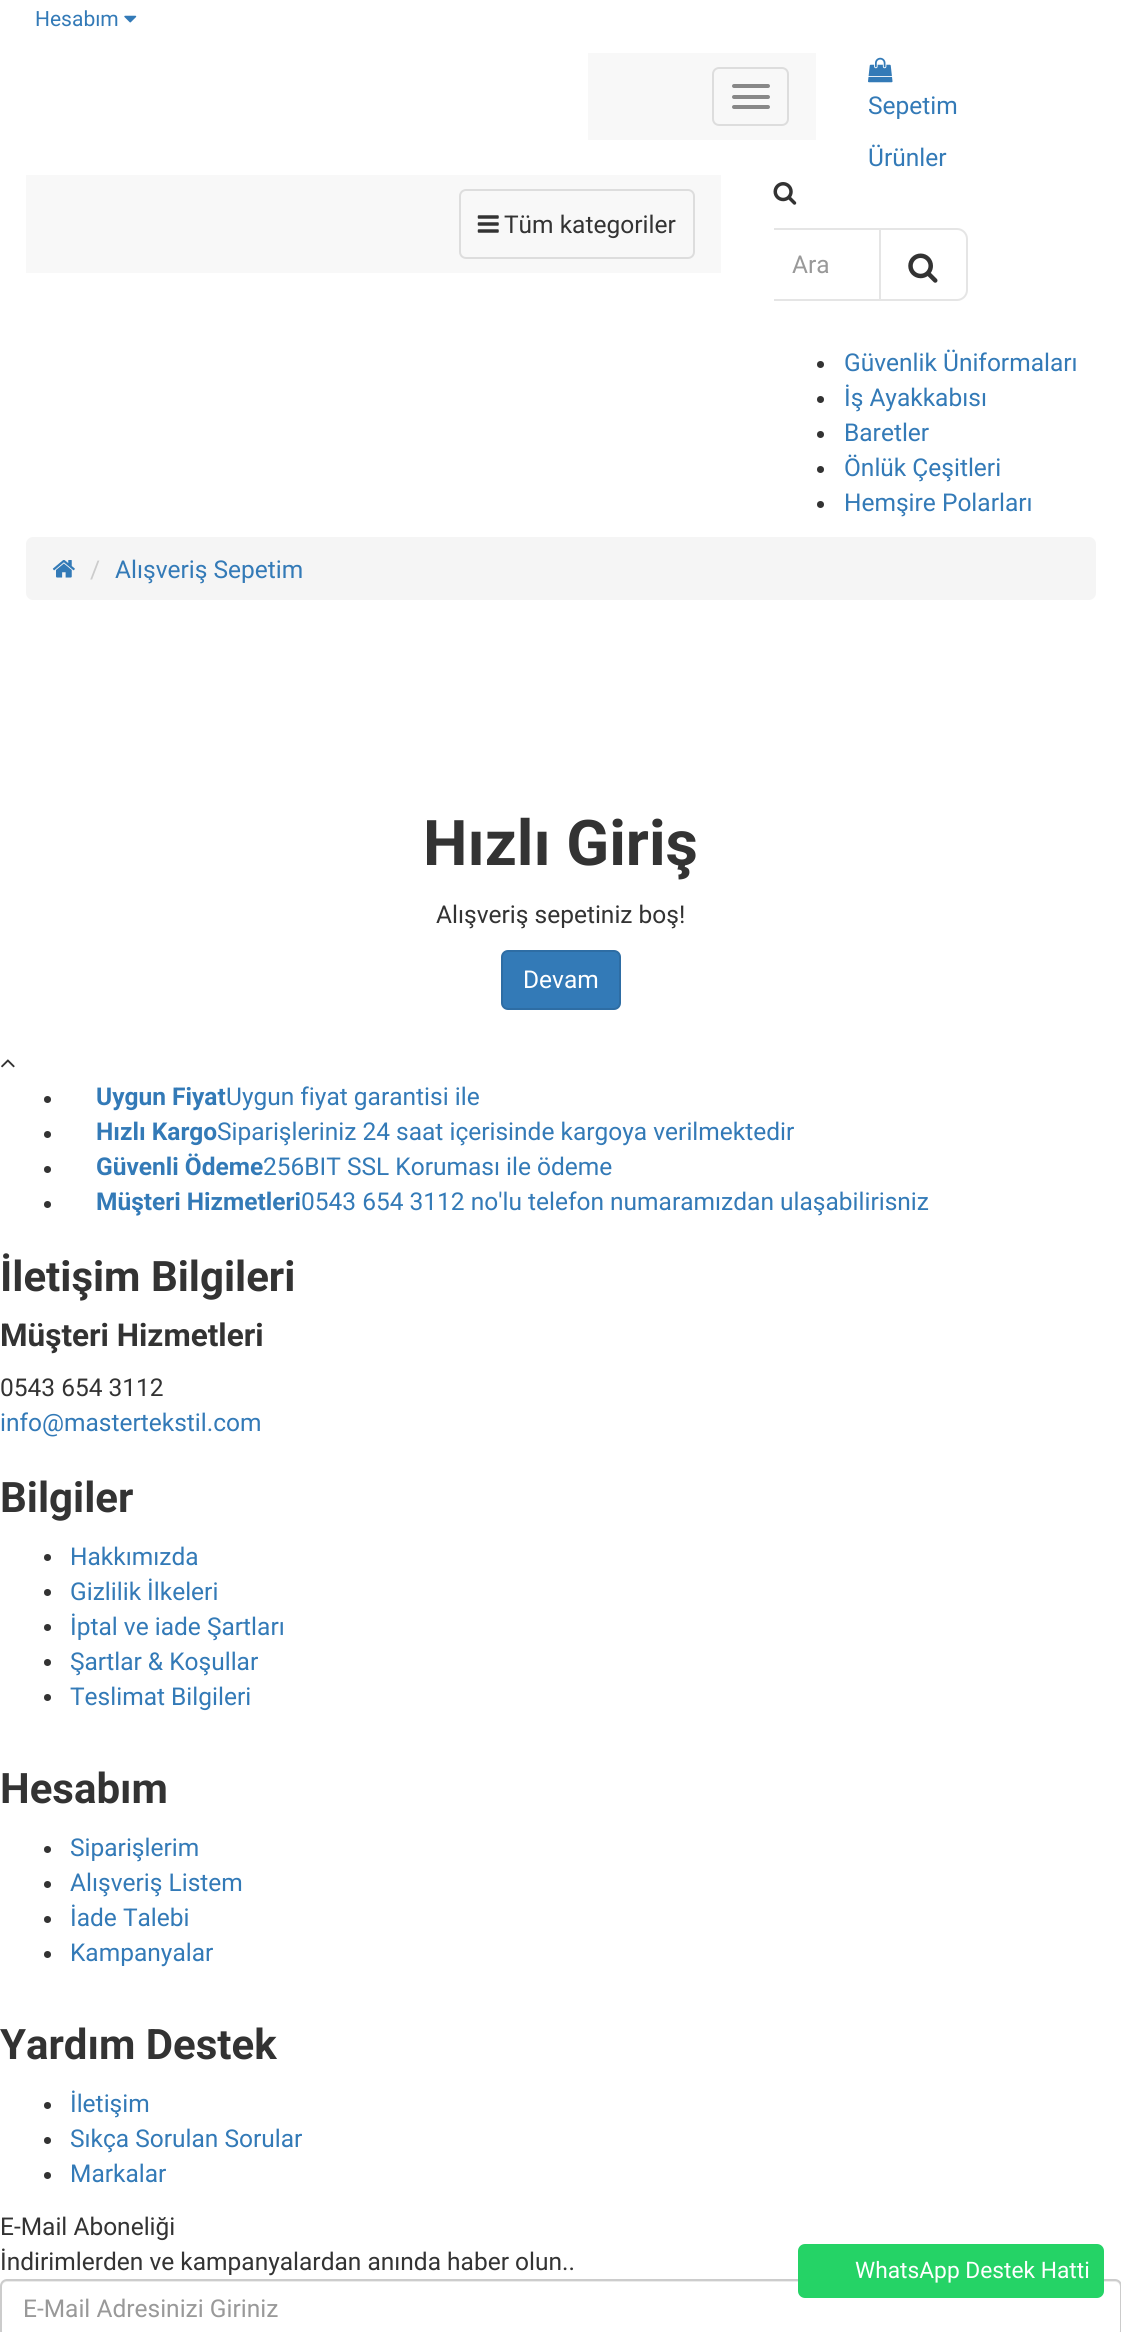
#include <cairo/cairo.h>
#include <math.h>
#include <stddef.h>


static void rounded_rect(cairo_t *cr, double x, double y, double w, double h, double r) {
  cairo_new_sub_path(cr);
  cairo_arc(cr, x + w - r, y + h - r, r, 0, M_PI / 2);
  cairo_arc(cr, x + r, y + h - r, r, M_PI / 2, M_PI);
  cairo_arc(cr, x + r, y + r, r, M_PI, 1.5 * M_PI);
  cairo_arc(cr, x + w - r, y + r, r, 1.5 * M_PI, 2 * M_PI);
  cairo_close_path(cr);
}

static void draw_image(cairo_t *cr, const char *path, double x, double y, double w, double h) {
  cairo_surface_t *image = cairo_image_surface_create_from_png(path);
  cairo_save(cr);
  cairo_set_source_surface(cr, image, x, y);
  cairo_rectangle(cr, x, y, w, h);
  cairo_fill(cr);
  cairo_restore(cr);
  cairo_surface_destroy(image);
}

static void draw(cairo_t *cr) {
  cairo_set_source_rgb(cr, 1, 1, 1);
  cairo_paint(cr);
  draw_image(cr, "images/1.png", 124, 15, 13, 8);
  cairo_set_source_rgb(cr, 248 / 255.0, 248 / 255.0, 248 / 255.0);
  cairo_rectangle(cr, 588, 53, 228, 87);
  cairo_fill(cr);
  rounded_rect(cr, 713, 68, 75, 57, 6);
  cairo_set_source_rgb(cr, 221 / 255.0, 221 / 255.0, 221 / 255.0);
  cairo_stroke(cr);
  cairo_set_source_rgb(cr, 136 / 255.0, 136 / 255.0, 136 / 255.0);
  rounded_rect(cr, 732, 84, 38, 4, 2);
  cairo_fill(cr);
  rounded_rect(cr, 732, 95, 38, 4, 2);
  cairo_fill(cr);
  rounded_rect(cr, 732, 105, 38, 4, 2);
  cairo_fill(cr);
  draw_image(cr, "images/2.png", 868, 57, 25, 26);
  cairo_set_source_rgb(cr, 248 / 255.0, 248 / 255.0, 248 / 255.0);
  cairo_rectangle(cr, 26, 175, 695, 98);
  cairo_fill(cr);
  rounded_rect(cr, 460, 190, 234, 68, 6);
  cairo_set_source_rgb(cr, 221 / 255.0, 221 / 255.0, 221 / 255.0);
  cairo_stroke(cr);
  draw_image(cr, "images/3.png", 477, 215, 22, 18);
  draw_image(cr, "images/4.png", 773, 182, 24, 23);
  cairo_set_source_rgb(cr, 229 / 255.0, 229 / 255.0, 229 / 255.0);
  cairo_rectangle(cr, 774, 228, 106, 2);
  cairo_fill(cr);
  cairo_rectangle(cr, 774, 299, 106, 2);
  cairo_fill(cr);
  cairo_set_source_rgb(cr, 1, 1, 1);
  cairo_new_path(cr);
  cairo_move_to(cr, 880, 229);
  cairo_line_to(cr, 957, 229);
  cairo_curve_to(cr, 962.5, 229, 967, 233.5, 967, 239);
  cairo_line_to(cr, 967, 290);
  cairo_curve_to(cr, 967, 295.5, 962.5, 300, 957, 300);
  cairo_line_to(cr, 880, 300);
  cairo_close_path(cr);
  cairo_fill_preserve(cr);
  cairo_set_source_rgb(cr, 229 / 255.0, 229 / 255.0, 229 / 255.0);
  cairo_stroke(cr);
  draw_image(cr, "images/5.png", 908, 253, 30, 30);
  cairo_set_source_rgb(cr, 51 / 255.0, 51 / 255.0, 51 / 255.0);
  cairo_arc(cr, 820.5, 364.5, 3.5, 0, 2 * M_PI);
  cairo_fill(cr);
  cairo_arc(cr, 820.5, 399.5, 3.5, 0, 2 * M_PI);
  cairo_fill(cr);
  cairo_arc(cr, 820.5, 434.5, 3.5, 0, 2 * M_PI);
  cairo_fill(cr);
  cairo_arc(cr, 820.5, 469.5, 3.5, 0, 2 * M_PI);
  cairo_fill(cr);
  cairo_arc(cr, 820.5, 504.5, 3.5, 0, 2 * M_PI);
  cairo_fill(cr);
  cairo_set_source_rgb(cr, 245 / 255.0, 245 / 255.0, 245 / 255.0);
  rounded_rect(cr, 26, 537, 1070, 63, 7);
  cairo_fill(cr);
  draw_image(cr, "images/6.png", 52, 560, 23, 18);
  cairo_set_source_rgb(cr, 51 / 255.0, 122 / 255.0, 183 / 255.0);
  rounded_rect(cr, 502, 951, 118, 58, 6);
  cairo_fill_preserve(cr);
  cairo_set_source_rgb(cr, 46 / 255.0, 109 / 255.0, 164 / 255.0);
  cairo_stroke(cr);
  draw_image(cr, "images/7.png", 1, 1059, 14, 9);
  cairo_set_source_rgb(cr, 51 / 255.0, 51 / 255.0, 51 / 255.0);
  cairo_arc(cr, 47.5, 1099.5, 3.5, 0, 2 * M_PI);
  cairo_fill(cr);
  cairo_arc(cr, 47.5, 1134.5, 3.5, 0, 2 * M_PI);
  cairo_fill(cr);
  cairo_arc(cr, 47.5, 1169.5, 3.5, 0, 2 * M_PI);
  cairo_fill(cr);
  cairo_arc(cr, 47.5, 1204.5, 3.5, 0, 2 * M_PI);
  cairo_fill(cr);
  cairo_arc(cr, 47.5, 1557.5, 3.5, 0, 2 * M_PI);
  cairo_fill(cr);
  cairo_arc(cr, 47.5, 1592.5, 3.5, 0, 2 * M_PI);
  cairo_fill(cr);
  cairo_arc(cr, 47.5, 1627.5, 3.5, 0, 2 * M_PI);
  cairo_fill(cr);
  cairo_arc(cr, 47.5, 1662.5, 3.5, 0, 2 * M_PI);
  cairo_fill(cr);
  cairo_arc(cr, 47.5, 1697.5, 3.5, 0, 2 * M_PI);
  cairo_fill(cr);
  cairo_arc(cr, 47.5, 1849.5, 3.5, 0, 2 * M_PI);
  cairo_fill(cr);
  cairo_arc(cr, 47.5, 1884.5, 3.5, 0, 2 * M_PI);
  cairo_fill(cr);
  cairo_arc(cr, 47.5, 1919.5, 3.5, 0, 2 * M_PI);
  cairo_fill(cr);
  cairo_arc(cr, 47.5, 1954.5, 3.5, 0, 2 * M_PI);
  cairo_fill(cr);
  cairo_arc(cr, 47.5, 2105.5, 3.5, 0, 2 * M_PI);
  cairo_fill(cr);
  cairo_arc(cr, 47.5, 2140.5, 3.5, 0, 2 * M_PI);
  cairo_fill(cr);
  cairo_arc(cr, 47.5, 2175.5, 3.5, 0, 2 * M_PI);
  cairo_fill(cr);
  cairo_set_source_rgb(cr, 236 / 255.0, 236 / 255.0, 236 / 255.0);
  cairo_new_path(cr);
  cairo_move_to(cr, 7, 2282);
  cairo_line_to(cr, 1115, 2282);
  cairo_curve_to(cr, 1118, 2282, 1120, 2284, 1120, 2287);
  cairo_line_to(cr, 1120, 2285);
  cairo_curve_to(cr, 1120, 2282, 1118, 2280, 1115, 2280);
  cairo_line_to(cr, 7, 2280);
  cairo_curve_to(cr, 4, 2280, 2, 2282, 2, 2285);
  cairo_line_to(cr, 2, 2287);
  cairo_curve_to(cr, 2, 2284, 4, 2282, 7, 2282);
  cairo_close_path(cr);
  cairo_fill(cr);
  rounded_rect(cr, 1, 2280, 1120, 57, 6);
  cairo_set_source_rgb(cr, 204 / 255.0, 204 / 255.0, 204 / 255.0);
  cairo_stroke(cr);
  cairo_set_source_rgb(cr, 37 / 255.0, 211 / 255.0, 102 / 255.0);
  rounded_rect(cr, 798, 2244, 306, 54, 7);
  cairo_fill(cr);
  cairo_select_font_face(cr, "Roboto", CAIRO_FONT_SLANT_NORMAL, CAIRO_FONT_WEIGHT_NORMAL);
  cairo_set_font_size(cr, 21);
  cairo_set_source_rgb(cr, 51 / 255.0, 122 / 255.0, 183 / 255.0);
  cairo_move_to(cr, 35, 26);
  cairo_show_text(cr, "Hesabım");
  cairo_set_font_size(cr, 24.5);
  cairo_move_to(cr, 868, 114);
  cairo_show_text(cr, "Sepetim");
  cairo_move_to(cr, 868, 166);
  cairo_show_text(cr, "Ürünler");
  cairo_set_source_rgb(cr, 51 / 255.0, 51 / 255.0, 51 / 255.0);
  cairo_move_to(cr, 504, 233);
  cairo_show_text(cr, "Tüm kategoriler");
  cairo_set_source_rgb(cr, 153 / 255.0, 153 / 255.0, 153 / 255.0);
  cairo_move_to(cr, 792, 273);
  cairo_show_text(cr, "Ara");
  cairo_set_source_rgb(cr, 51 / 255.0, 122 / 255.0, 183 / 255.0);
  cairo_move_to(cr, 844, 371);
  cairo_show_text(cr, "Güvenlik Üniformaları");
  cairo_move_to(cr, 844, 406);
  cairo_show_text(cr, "İş Ayakkabısı");
  cairo_move_to(cr, 844, 441);
  cairo_show_text(cr, "Baretler");
  cairo_move_to(cr, 844, 476);
  cairo_show_text(cr, "Önlük Çeşitleri");
  cairo_move_to(cr, 844, 511);
  cairo_show_text(cr, "Hemşire Polarları");
  cairo_set_source_rgb(cr, 204 / 255.0, 204 / 255.0, 204 / 255.0);
  cairo_move_to(cr, 90, 578);
  cairo_show_text(cr, "/");
  cairo_set_source_rgb(cr, 51 / 255.0, 122 / 255.0, 183 / 255.0);
  cairo_move_to(cr, 115, 578);
  cairo_show_text(cr, "Alışveriş Sepetim");
  cairo_select_font_face(cr, "Roboto", CAIRO_FONT_SLANT_NORMAL, CAIRO_FONT_WEIGHT_BOLD);
  cairo_set_font_size(cr, 63);
  cairo_set_source_rgb(cr, 51 / 255.0, 51 / 255.0, 51 / 255.0);
  cairo_move_to(cr, 423, 865);
  cairo_show_text(cr, "Hızlı Giriş");
  cairo_select_font_face(cr, "Roboto", CAIRO_FONT_SLANT_NORMAL, CAIRO_FONT_WEIGHT_NORMAL);
  cairo_set_font_size(cr, 24.5);
  cairo_move_to(cr, 436, 923);
  cairo_show_text(cr, "Alışveriş sepetiniz boş!");
  cairo_set_source_rgb(cr, 1, 1, 1);
  cairo_move_to(cr, 523, 988);
  cairo_show_text(cr, "Devam");
  cairo_select_font_face(cr, "Roboto", CAIRO_FONT_SLANT_NORMAL, CAIRO_FONT_WEIGHT_BOLD);
  cairo_set_source_rgb(cr, 51 / 255.0, 122 / 255.0, 183 / 255.0);
  cairo_move_to(cr, 96, 1105);
  cairo_show_text(cr, "Uygun Fiyat");
  cairo_select_font_face(cr, "Roboto", CAIRO_FONT_SLANT_NORMAL, CAIRO_FONT_WEIGHT_NORMAL);
  cairo_move_to(cr, 226, 1105);
  cairo_show_text(cr, "Uygun fiyat garantisi ile");
  cairo_select_font_face(cr, "Roboto", CAIRO_FONT_SLANT_NORMAL, CAIRO_FONT_WEIGHT_BOLD);
  cairo_move_to(cr, 96, 1140);
  cairo_show_text(cr, "Hızlı Kargo");
  cairo_select_font_face(cr, "Roboto", CAIRO_FONT_SLANT_NORMAL, CAIRO_FONT_WEIGHT_NORMAL);
  cairo_move_to(cr, 217, 1140);
  cairo_show_text(cr, "Siparişleriniz 24 saat içerisinde kargoya verilmektedir");
  cairo_select_font_face(cr, "Roboto", CAIRO_FONT_SLANT_NORMAL, CAIRO_FONT_WEIGHT_BOLD);
  cairo_move_to(cr, 96, 1175);
  cairo_show_text(cr, "Güvenli Ödeme");
  cairo_select_font_face(cr, "Roboto", CAIRO_FONT_SLANT_NORMAL, CAIRO_FONT_WEIGHT_NORMAL);
  cairo_move_to(cr, 263, 1175);
  cairo_show_text(cr, "256BIT SSL Koruması ile ödeme");
  cairo_select_font_face(cr, "Roboto", CAIRO_FONT_SLANT_NORMAL, CAIRO_FONT_WEIGHT_BOLD);
  cairo_move_to(cr, 96, 1210);
  cairo_show_text(cr, "Müşteri Hizmetleri");
  cairo_select_font_face(cr, "Roboto", CAIRO_FONT_SLANT_NORMAL, CAIRO_FONT_WEIGHT_NORMAL);
  cairo_move_to(cr, 301, 1210);
  cairo_show_text(cr, "0543 654 3112 no'lu telefon numaramızdan ulaşabilirisniz");
  cairo_select_font_face(cr, "Roboto", CAIRO_FONT_SLANT_NORMAL, CAIRO_FONT_WEIGHT_BOLD);
  cairo_set_font_size(cr, 42);
  cairo_set_source_rgb(cr, 51 / 255.0, 51 / 255.0, 51 / 255.0);
  cairo_move_to(cr, 0, 1291);
  cairo_show_text(cr, "İletişim Bilgileri");
  cairo_set_font_size(cr, 31.5);
  cairo_move_to(cr, 0, 1346);
  cairo_show_text(cr, "Müşteri Hizmetleri");
  cairo_select_font_face(cr, "Roboto", CAIRO_FONT_SLANT_NORMAL, CAIRO_FONT_WEIGHT_NORMAL);
  cairo_set_font_size(cr, 24.5);
  cairo_move_to(cr, 0, 1396);
  cairo_show_text(cr, "0543 654 3112");
  cairo_set_source_rgb(cr, 51 / 255.0, 122 / 255.0, 183 / 255.0);
  cairo_move_to(cr, 0, 1431);
  cairo_show_text(cr, "info@mastertekstil.com");
  cairo_select_font_face(cr, "Roboto", CAIRO_FONT_SLANT_NORMAL, CAIRO_FONT_WEIGHT_BOLD);
  cairo_set_font_size(cr, 42);
  cairo_set_source_rgb(cr, 51 / 255.0, 51 / 255.0, 51 / 255.0);
  cairo_move_to(cr, 0, 1512);
  cairo_show_text(cr, "Bilgiler");
  cairo_select_font_face(cr, "Roboto", CAIRO_FONT_SLANT_NORMAL, CAIRO_FONT_WEIGHT_NORMAL);
  cairo_set_font_size(cr, 24.5);
  cairo_set_source_rgb(cr, 51 / 255.0, 122 / 255.0, 183 / 255.0);
  cairo_move_to(cr, 70, 1565);
  cairo_show_text(cr, "Hakkımızda");
  cairo_move_to(cr, 70, 1600);
  cairo_show_text(cr, "Gizlilik İlkeleri");
  cairo_move_to(cr, 70, 1635);
  cairo_show_text(cr, "İptal ve iade Şartları");
  cairo_move_to(cr, 70, 1670);
  cairo_show_text(cr, "Şartlar & Koşullar");
  cairo_move_to(cr, 70, 1705);
  cairo_show_text(cr, "Teslimat Bilgileri");
  cairo_select_font_face(cr, "Roboto", CAIRO_FONT_SLANT_NORMAL, CAIRO_FONT_WEIGHT_BOLD);
  cairo_set_font_size(cr, 42);
  cairo_set_source_rgb(cr, 51 / 255.0, 51 / 255.0, 51 / 255.0);
  cairo_move_to(cr, 0, 1803);
  cairo_show_text(cr, "Hesabım");
  cairo_select_font_face(cr, "Roboto", CAIRO_FONT_SLANT_NORMAL, CAIRO_FONT_WEIGHT_NORMAL);
  cairo_set_font_size(cr, 24.5);
  cairo_set_source_rgb(cr, 51 / 255.0, 122 / 255.0, 183 / 255.0);
  cairo_move_to(cr, 70, 1856);
  cairo_show_text(cr, "Siparişlerim");
  cairo_move_to(cr, 70, 1891);
  cairo_show_text(cr, "Alışveriş Listem");
  cairo_move_to(cr, 70, 1926);
  cairo_show_text(cr, "İade Talebi");
  cairo_move_to(cr, 70, 1961);
  cairo_show_text(cr, "Kampanyalar");
  cairo_select_font_face(cr, "Roboto", CAIRO_FONT_SLANT_NORMAL, CAIRO_FONT_WEIGHT_BOLD);
  cairo_set_font_size(cr, 42);
  cairo_set_source_rgb(cr, 51 / 255.0, 51 / 255.0, 51 / 255.0);
  cairo_move_to(cr, 0, 2059);
  cairo_show_text(cr, "Yardım Destek");
  cairo_select_font_face(cr, "Roboto", CAIRO_FONT_SLANT_NORMAL, CAIRO_FONT_WEIGHT_NORMAL);
  cairo_set_font_size(cr, 24.5);
  cairo_set_source_rgb(cr, 51 / 255.0, 122 / 255.0, 183 / 255.0);
  cairo_move_to(cr, 70, 2112);
  cairo_show_text(cr, "İletişim");
  cairo_move_to(cr, 70, 2147);
  cairo_show_text(cr, "Sıkça Sorulan Sorular");
  cairo_move_to(cr, 70, 2182);
  cairo_show_text(cr, "Markalar");
  cairo_set_source_rgb(cr, 51 / 255.0, 51 / 255.0, 51 / 255.0);
  cairo_move_to(cr, 0, 2235);
  cairo_show_text(cr, "E-Mail Aboneliği");
  cairo_move_to(cr, 0, 2270);
  cairo_show_text(cr, "İndirimlerden ve kampanyalardan anında haber olun..");
  cairo_set_source_rgb(cr, 153 / 255.0, 153 / 255.0, 153 / 255.0);
  cairo_move_to(cr, 23, 2317);
  cairo_show_text(cr, "E-Mail Adresinizi Giriniz");
  cairo_set_font_size(cr, 22.75);
  cairo_set_source_rgb(cr, 1, 1, 1);
  cairo_move_to(cr, 855, 2278);
  cairo_show_text(cr, "WhatsApp Destek Hatti");
}

int main(void) {
  cairo_surface_t *surface = cairo_image_surface_create(CAIRO_FORMAT_RGB24, 1121, 2332);
  cairo_t *cr = cairo_create(surface);
  cairo_font_options_t *options = cairo_font_options_create();
  cairo_font_options_set_hint_metrics(options, CAIRO_HINT_METRICS_OFF);
  cairo_font_options_set_hint_style(options, CAIRO_HINT_STYLE_NONE);
  cairo_set_font_options(cr, options);
  cairo_set_miter_limit(cr, 4);
  draw(cr);
  cairo_surface_write_to_png(surface, "out.png");
  cairo_font_options_destroy(options);
  cairo_destroy(cr);
  cairo_surface_destroy(surface);
  return 0;
}
